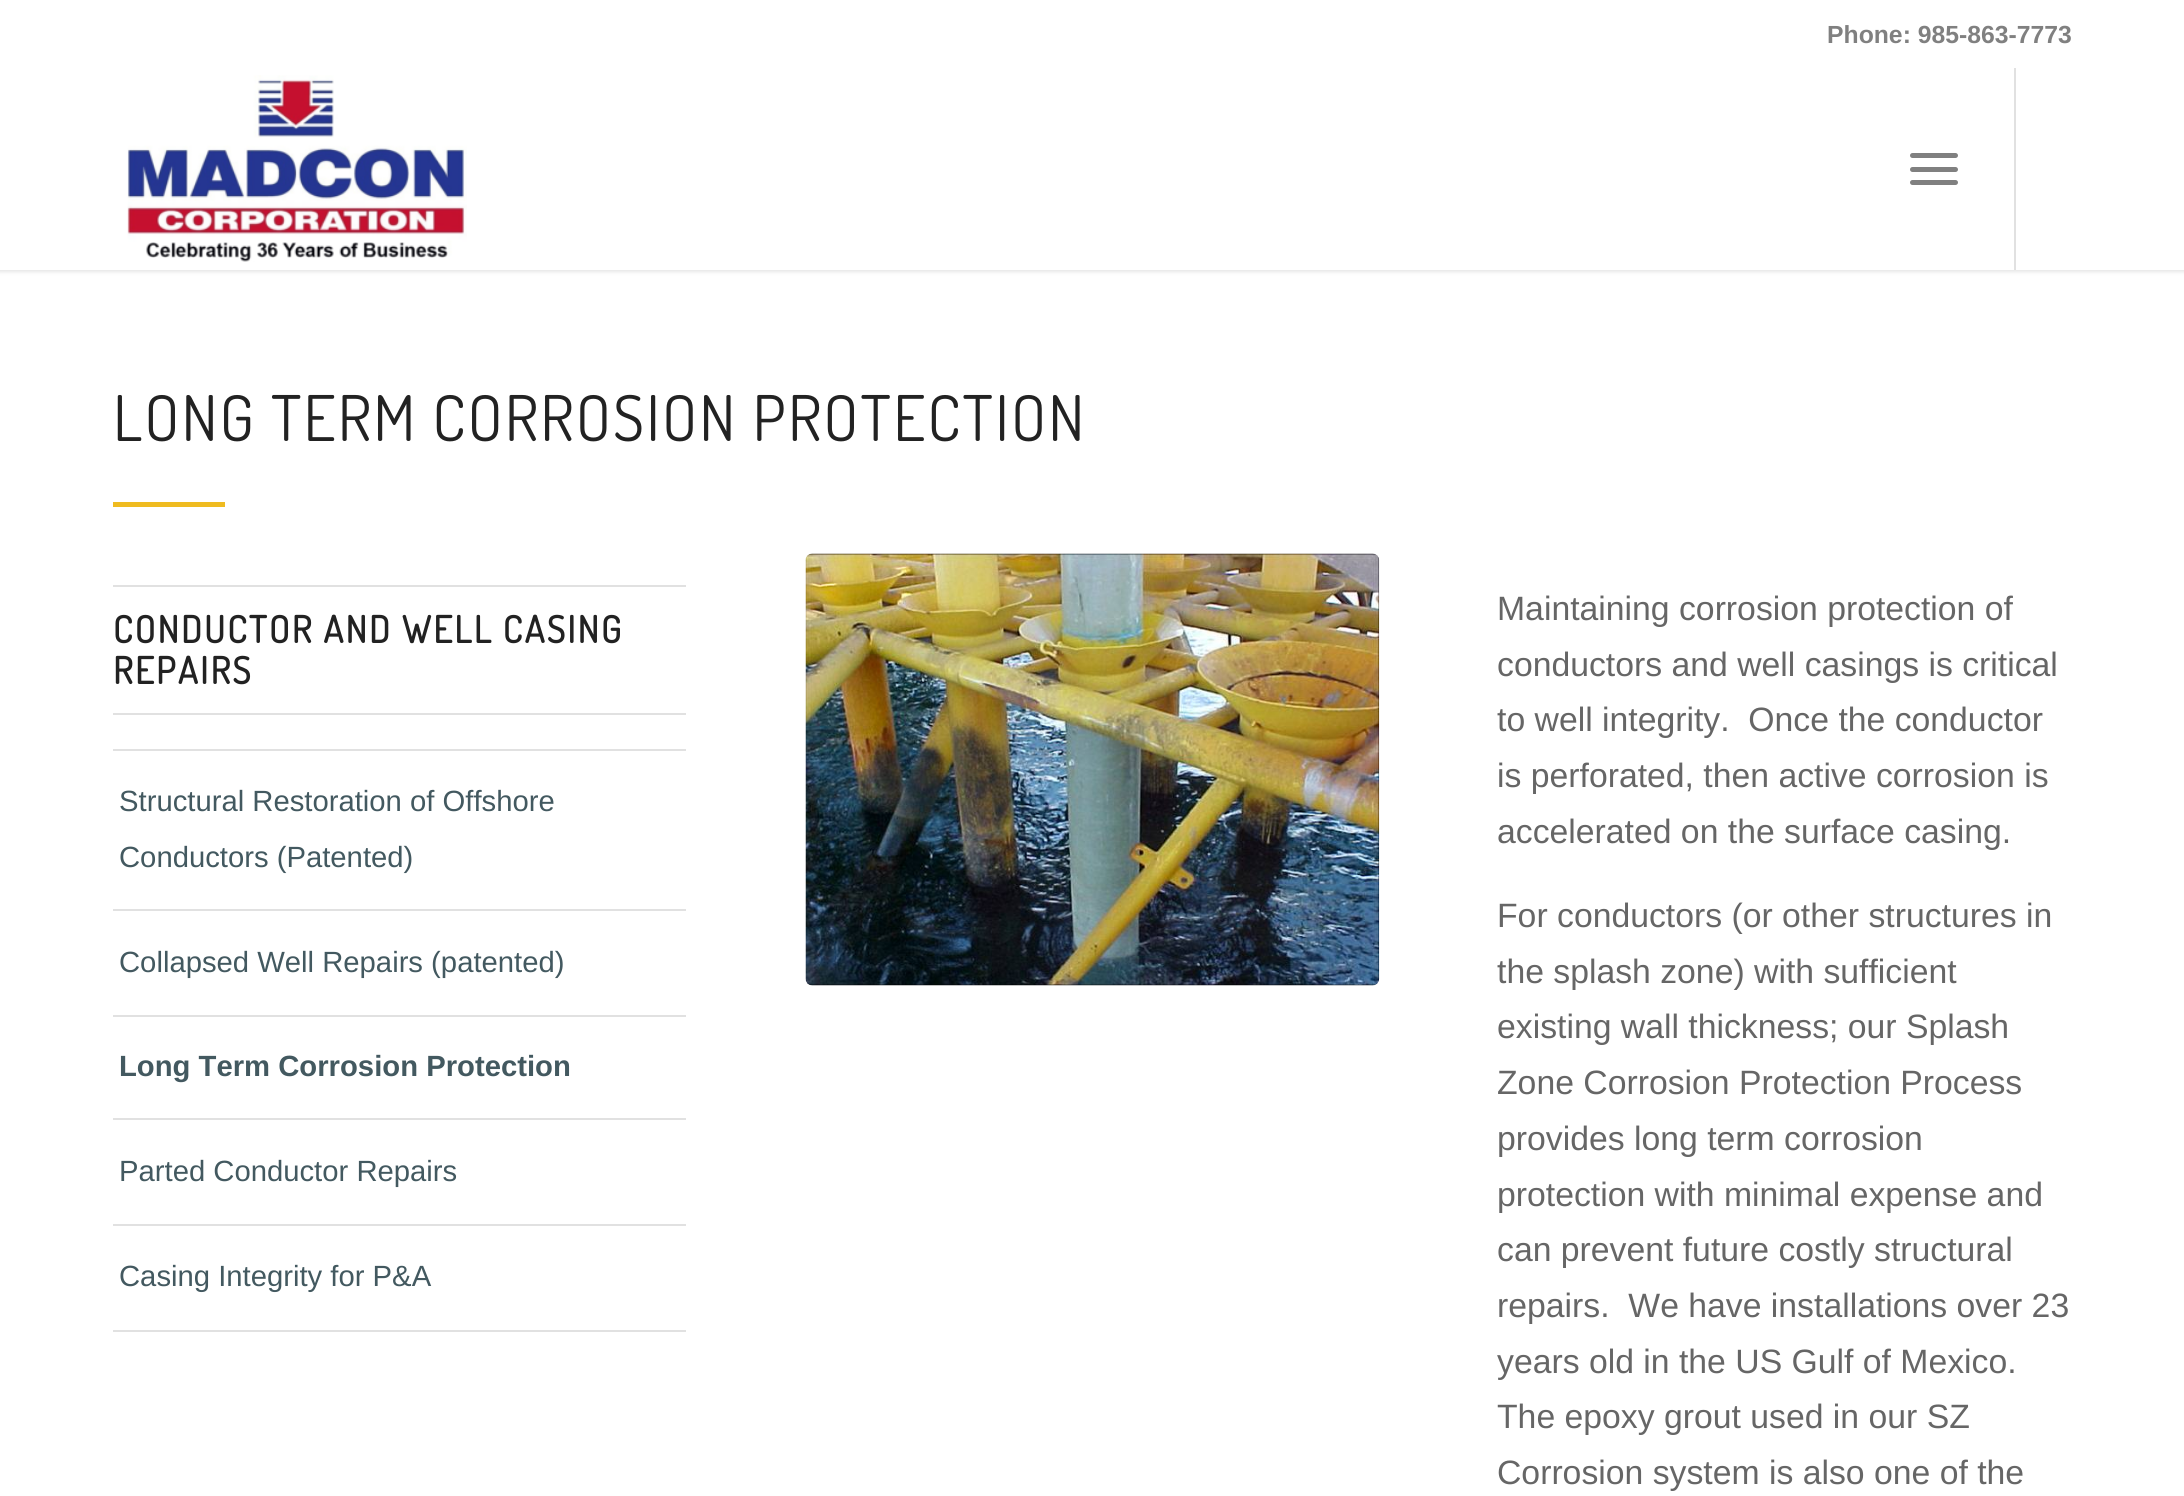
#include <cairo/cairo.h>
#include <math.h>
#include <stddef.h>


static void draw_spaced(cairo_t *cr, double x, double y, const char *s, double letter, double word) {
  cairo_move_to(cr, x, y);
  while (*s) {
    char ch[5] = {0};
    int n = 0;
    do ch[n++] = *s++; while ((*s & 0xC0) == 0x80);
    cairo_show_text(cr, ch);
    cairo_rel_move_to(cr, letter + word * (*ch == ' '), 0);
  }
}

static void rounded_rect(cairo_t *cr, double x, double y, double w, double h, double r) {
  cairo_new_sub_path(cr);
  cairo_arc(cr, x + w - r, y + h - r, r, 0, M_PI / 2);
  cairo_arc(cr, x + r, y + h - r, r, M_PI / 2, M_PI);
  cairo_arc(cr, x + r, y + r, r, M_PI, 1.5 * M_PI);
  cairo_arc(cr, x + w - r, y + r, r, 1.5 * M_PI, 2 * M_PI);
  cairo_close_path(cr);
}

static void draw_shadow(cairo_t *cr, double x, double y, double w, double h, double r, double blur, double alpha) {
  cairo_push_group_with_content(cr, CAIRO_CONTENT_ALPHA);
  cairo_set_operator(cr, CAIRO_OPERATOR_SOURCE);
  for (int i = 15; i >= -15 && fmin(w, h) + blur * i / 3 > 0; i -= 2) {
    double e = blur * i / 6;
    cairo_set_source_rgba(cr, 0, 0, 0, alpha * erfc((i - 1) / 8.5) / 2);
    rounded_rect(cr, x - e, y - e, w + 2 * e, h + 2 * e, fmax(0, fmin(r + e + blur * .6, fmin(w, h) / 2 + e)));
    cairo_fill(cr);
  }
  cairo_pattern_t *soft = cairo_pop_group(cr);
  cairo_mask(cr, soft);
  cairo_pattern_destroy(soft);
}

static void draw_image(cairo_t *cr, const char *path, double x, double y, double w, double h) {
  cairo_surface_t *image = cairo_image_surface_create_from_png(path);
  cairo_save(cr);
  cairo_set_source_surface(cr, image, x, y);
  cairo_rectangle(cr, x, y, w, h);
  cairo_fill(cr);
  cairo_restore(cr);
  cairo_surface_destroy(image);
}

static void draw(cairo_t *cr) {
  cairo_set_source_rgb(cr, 1, 1, 1);
  cairo_paint(cr);
  cairo_set_source_rgb(cr, 0, 0, 0);
  draw_shadow(cr, -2, -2, 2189, 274, 0, 2, 0.1);
  cairo_set_source_rgb(cr, 1, 1, 1);
  cairo_rectangle(cr, 0, 0, 2184, 270);
  cairo_fill(cr);
  draw_image(cr, "images/1.png", 127, 75, 340, 187);
  cairo_set_source_rgb(cr, 225 / 255.0, 225 / 255.0, 225 / 255.0);
  cairo_rectangle(cr, 2014, 68, 2, 202);
  cairo_fill(cr);
  cairo_set_source_rgb(cr, 128 / 255.0, 128 / 255.0, 128 / 255.0);
  rounded_rect(cr, 1910, 167, 48, 5, 2.5);
  cairo_fill(cr);
  rounded_rect(cr, 1910, 153, 48, 5, 2.5);
  cairo_fill(cr);
  rounded_rect(cr, 1910, 180, 48, 5, 2.5);
  cairo_fill(cr);
  cairo_set_source_rgb(cr, 239 / 255.0, 187 / 255.0, 32 / 255.0);
  cairo_rectangle(cr, 113, 502, 112, 5);
  cairo_fill(cr);
  cairo_set_source_rgb(cr, 225 / 255.0, 225 / 255.0, 225 / 255.0);
  cairo_rectangle(cr, 113, 585, 573, 2);
  cairo_fill(cr);
  cairo_rectangle(cr, 113, 713, 573, 2);
  cairo_fill(cr);
  cairo_rectangle(cr, 113, 749, 573, 2);
  cairo_fill(cr);
  cairo_rectangle(cr, 113, 909, 573, 2);
  cairo_fill(cr);
  cairo_rectangle(cr, 113, 1015, 573, 2);
  cairo_fill(cr);
  cairo_rectangle(cr, 113, 1118, 573, 2);
  cairo_fill(cr);
  cairo_rectangle(cr, 113, 1224, 573, 2);
  cairo_fill(cr);
  cairo_rectangle(cr, 113, 1330, 573, 2);
  cairo_fill(cr);
  draw_image(cr, "images/2.png", 805, 553, 575, 433);
  cairo_select_font_face(cr, "Liberation Sans", CAIRO_FONT_SLANT_NORMAL, CAIRO_FONT_WEIGHT_BOLD);
  cairo_set_font_size(cr, 24.75);
  cairo_set_source_rgb(cr, 128 / 255.0, 128 / 255.0, 128 / 255.0);
  cairo_move_to(cr, 1827, 43);
  cairo_show_text(cr, "Phone: 985-863-7773");
  cairo_select_font_face(cr, "Dosis", CAIRO_FONT_SLANT_NORMAL, CAIRO_FONT_WEIGHT_NORMAL);
  cairo_set_font_size(cr, 63);
  cairo_set_source_rgb(cr, 34 / 255.0, 34 / 255.0, 34 / 255.0);
  draw_spaced(cr, 113, 441, "LONG TERM CORROSION PROTECTION", 2.25, 0);
  cairo_select_font_face(cr, "Dosis", CAIRO_FONT_SLANT_NORMAL, CAIRO_FONT_WEIGHT_BOLD);
  cairo_set_font_size(cr, 37.1);
  draw_spaced(cr, 113, 643, "CONDUCTOR AND WELL CASING", 2.25, 0);
  draw_spaced(cr, 113, 684, "REPAIRS", 2.25, 0);
  cairo_select_font_face(cr, "Liberation Sans", CAIRO_FONT_SLANT_NORMAL, CAIRO_FONT_WEIGHT_NORMAL);
  cairo_set_font_size(cr, 29.25);
  cairo_set_source_rgb(cr, 67 / 255.0, 89 / 255.0, 96 / 255.0);
  cairo_move_to(cr, 119, 811);
  cairo_show_text(cr, "Structural Restoration of Offshore");
  cairo_move_to(cr, 119, 867);
  cairo_show_text(cr, "Conductors (Patented)");
  cairo_move_to(cr, 119, 972);
  cairo_show_text(cr, "Collapsed Well Repairs (patented)");
  cairo_select_font_face(cr, "Liberation Sans", CAIRO_FONT_SLANT_NORMAL, CAIRO_FONT_WEIGHT_BOLD);
  cairo_move_to(cr, 119, 1076);
  cairo_show_text(cr, "Long Term Corrosion Protection");
  cairo_select_font_face(cr, "Liberation Sans", CAIRO_FONT_SLANT_NORMAL, CAIRO_FONT_WEIGHT_NORMAL);
  cairo_move_to(cr, 119, 1181);
  cairo_show_text(cr, "Parted Conductor Repairs");
  cairo_move_to(cr, 119, 1286);
  cairo_show_text(cr, "Casing Integrity for P&A");
  cairo_set_font_size(cr, 33.75);
  cairo_set_source_rgb(cr, 102 / 255.0, 102 / 255.0, 102 / 255.0);
  cairo_move_to(cr, 1497, 620);
  cairo_show_text(cr, "Maintaining corrosion protection of");
  cairo_move_to(cr, 1497, 676);
  cairo_show_text(cr, "conductors and well casings is critical");
  cairo_move_to(cr, 1497, 731);
  cairo_show_text(cr, "to well integrity.  Once the conductor");
  cairo_move_to(cr, 1497, 787);
  cairo_show_text(cr, "is perforated, then active corrosion is");
  cairo_move_to(cr, 1497, 843);
  cairo_show_text(cr, "accelerated on the surface casing.");
  cairo_move_to(cr, 1497, 927);
  cairo_show_text(cr, "For conductors (or other structures in");
  cairo_move_to(cr, 1497, 983);
  cairo_show_text(cr, "the splash zone) with sufficient");
  cairo_move_to(cr, 1497, 1038);
  cairo_show_text(cr, "existing wall thickness; our Splash");
  cairo_move_to(cr, 1497, 1094);
  cairo_show_text(cr, "Zone Corrosion Protection Process");
  cairo_move_to(cr, 1497, 1150);
  cairo_show_text(cr, "provides long term corrosion");
  cairo_move_to(cr, 1497, 1206);
  cairo_show_text(cr, "protection with minimal expense and");
  cairo_move_to(cr, 1497, 1261);
  cairo_show_text(cr, "can prevent future costly structural");
  cairo_move_to(cr, 1497, 1317);
  cairo_show_text(cr, "repairs.  We have installations over 23");
  cairo_move_to(cr, 1497, 1373);
  cairo_show_text(cr, "years old in the US Gulf of Mexico.");
  cairo_move_to(cr, 1497, 1428);
  cairo_show_text(cr, "The epoxy grout used in our SZ");
  cairo_move_to(cr, 1497, 1484);
  cairo_show_text(cr, "Corrosion system is also one of the");
}

int main(void) {
  cairo_surface_t *surface = cairo_image_surface_create(CAIRO_FORMAT_RGB24, 2184, 1496);
  cairo_t *cr = cairo_create(surface);
  cairo_font_options_t *options = cairo_font_options_create();
  cairo_font_options_set_hint_metrics(options, CAIRO_HINT_METRICS_OFF);
  cairo_font_options_set_hint_style(options, CAIRO_HINT_STYLE_NONE);
  cairo_set_font_options(cr, options);
  cairo_set_miter_limit(cr, 4);
  draw(cr);
  cairo_surface_write_to_png(surface, "out.png");
  cairo_font_options_destroy(options);
  cairo_destroy(cr);
  cairo_surface_destroy(surface);
  return 0;
}
